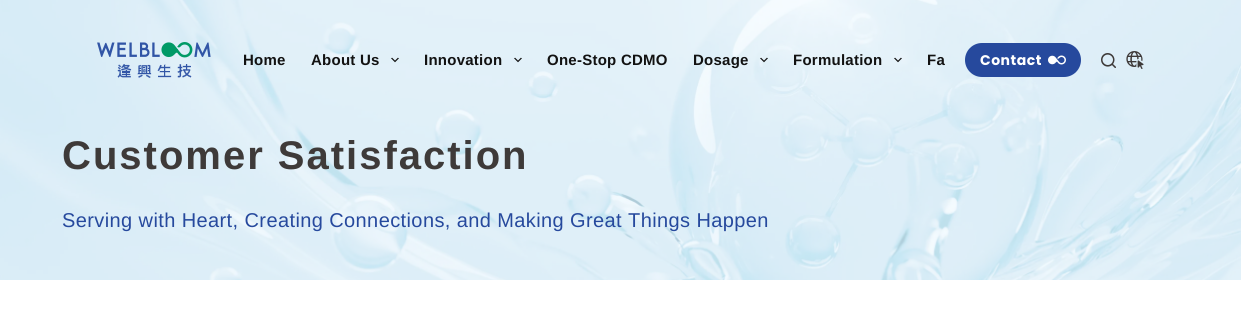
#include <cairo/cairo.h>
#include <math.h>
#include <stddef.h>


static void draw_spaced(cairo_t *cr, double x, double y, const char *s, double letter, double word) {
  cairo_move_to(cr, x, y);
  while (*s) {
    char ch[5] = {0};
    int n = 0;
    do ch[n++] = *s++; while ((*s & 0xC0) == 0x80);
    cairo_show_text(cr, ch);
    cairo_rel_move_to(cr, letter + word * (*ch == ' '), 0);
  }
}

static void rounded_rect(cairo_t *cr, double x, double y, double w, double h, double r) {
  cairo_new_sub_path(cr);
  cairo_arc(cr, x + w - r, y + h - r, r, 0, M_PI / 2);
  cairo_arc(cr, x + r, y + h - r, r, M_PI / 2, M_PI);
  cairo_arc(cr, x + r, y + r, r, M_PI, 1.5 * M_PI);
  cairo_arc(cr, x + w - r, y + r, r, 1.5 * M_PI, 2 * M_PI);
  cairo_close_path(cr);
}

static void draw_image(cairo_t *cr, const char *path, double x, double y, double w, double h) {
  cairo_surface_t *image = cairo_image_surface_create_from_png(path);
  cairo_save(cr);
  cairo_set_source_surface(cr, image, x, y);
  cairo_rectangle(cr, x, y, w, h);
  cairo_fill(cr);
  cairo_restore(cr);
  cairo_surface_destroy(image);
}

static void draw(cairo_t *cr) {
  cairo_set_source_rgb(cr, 1, 1, 1);
  cairo_paint(cr);
  draw_image(cr, "images/9.png", 0, 0, 1241, 280);
  draw_image(cr, "images/1.png", 97, 42, 114, 36);
  draw_image(cr, "images/2.png", 391, 57, 8, 6);
  draw_image(cr, "images/3.png", 514, 57, 8, 6);
  draw_image(cr, "images/4.png", 760, 57, 8, 6);
  draw_image(cr, "images/5.png", 894, 57, 8, 6);
  cairo_set_source_rgb(cr, 38 / 255.0, 73 / 255.0, 157 / 255.0);
  rounded_rect(cr, 965, 43, 116, 34, 17);
  cairo_fill(cr);
  draw_image(cr, "images/6.png", 1048, 55, 18, 10);
  draw_image(cr, "images/7.png", 1101, 53, 15, 15);
  draw_image(cr, "images/8.png", 1126, 51, 18, 18);
  cairo_select_font_face(cr, "Liberation Sans", CAIRO_FONT_SLANT_NORMAL, CAIRO_FONT_WEIGHT_BOLD);
  cairo_set_font_size(cr, 15);
  cairo_set_source_rgb(cr, 18 / 255.0, 18 / 255.0, 18 / 255.0);
  draw_spaced(cr, 243, 65, "Home", 0.25, 0);
  draw_spaced(cr, 311, 65, "About Us", 0.25, 0);
  draw_spaced(cr, 424, 65, "Innovation", 0.25, 0);
  draw_spaced(cr, 547, 65, "One-Stop CDMO", 0.25, 0);
  draw_spaced(cr, 693, 65, "Dosage", 0.25, 0);
  draw_spaced(cr, 793, 65, "Formulation", 0.25, 0);
  draw_spaced(cr, 927, 65, "Fa", 0.25, 0);
  cairo_select_font_face(cr, "Poppins", CAIRO_FONT_SLANT_NORMAL, CAIRO_FONT_WEIGHT_BOLD);
  cairo_set_font_size(cr, 14);
  cairo_set_source_rgb(cr, 1, 1, 1);
  draw_spaced(cr, 980, 65, "Contact", 0.5, 0);
  cairo_select_font_face(cr, "Liberation Sans", CAIRO_FONT_SLANT_NORMAL, CAIRO_FONT_WEIGHT_BOLD);
  cairo_set_font_size(cr, 40);
  cairo_set_source_rgb(cr, 62 / 255.0, 58 / 255.0, 57 / 255.0);
  draw_spaced(cr, 62, 169, "Customer Satisfaction", 2, 0);
  cairo_select_font_face(cr, "Liberation Sans", CAIRO_FONT_SLANT_NORMAL, CAIRO_FONT_WEIGHT_NORMAL);
  cairo_set_font_size(cr, 20);
  cairo_set_source_rgb(cr, 38 / 255.0, 73 / 255.0, 157 / 255.0);
  draw_spaced(cr, 62, 227, "Serving with Heart, Creating Connections, and Making Great Things Happen", 0.4, 0);
}

int main(void) {
  cairo_surface_t *surface = cairo_image_surface_create(CAIRO_FORMAT_RGB24, 1241, 335);
  cairo_t *cr = cairo_create(surface);
  cairo_font_options_t *options = cairo_font_options_create();
  cairo_font_options_set_hint_metrics(options, CAIRO_HINT_METRICS_OFF);
  cairo_font_options_set_hint_style(options, CAIRO_HINT_STYLE_NONE);
  cairo_set_font_options(cr, options);
  cairo_set_miter_limit(cr, 4);
  draw(cr);
  cairo_surface_write_to_png(surface, "out.png");
  cairo_font_options_destroy(options);
  cairo_destroy(cr);
  cairo_surface_destroy(surface);
  return 0;
}
